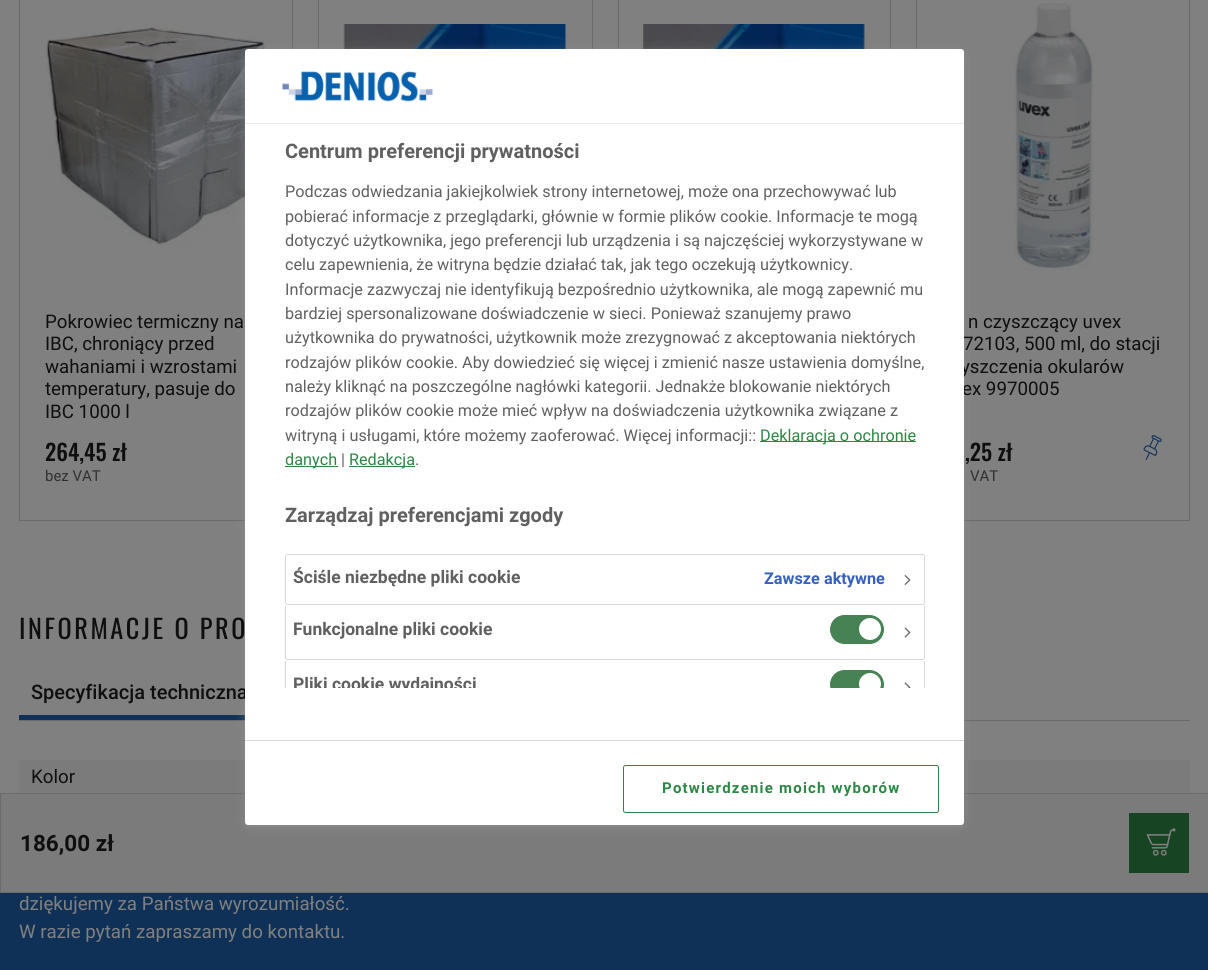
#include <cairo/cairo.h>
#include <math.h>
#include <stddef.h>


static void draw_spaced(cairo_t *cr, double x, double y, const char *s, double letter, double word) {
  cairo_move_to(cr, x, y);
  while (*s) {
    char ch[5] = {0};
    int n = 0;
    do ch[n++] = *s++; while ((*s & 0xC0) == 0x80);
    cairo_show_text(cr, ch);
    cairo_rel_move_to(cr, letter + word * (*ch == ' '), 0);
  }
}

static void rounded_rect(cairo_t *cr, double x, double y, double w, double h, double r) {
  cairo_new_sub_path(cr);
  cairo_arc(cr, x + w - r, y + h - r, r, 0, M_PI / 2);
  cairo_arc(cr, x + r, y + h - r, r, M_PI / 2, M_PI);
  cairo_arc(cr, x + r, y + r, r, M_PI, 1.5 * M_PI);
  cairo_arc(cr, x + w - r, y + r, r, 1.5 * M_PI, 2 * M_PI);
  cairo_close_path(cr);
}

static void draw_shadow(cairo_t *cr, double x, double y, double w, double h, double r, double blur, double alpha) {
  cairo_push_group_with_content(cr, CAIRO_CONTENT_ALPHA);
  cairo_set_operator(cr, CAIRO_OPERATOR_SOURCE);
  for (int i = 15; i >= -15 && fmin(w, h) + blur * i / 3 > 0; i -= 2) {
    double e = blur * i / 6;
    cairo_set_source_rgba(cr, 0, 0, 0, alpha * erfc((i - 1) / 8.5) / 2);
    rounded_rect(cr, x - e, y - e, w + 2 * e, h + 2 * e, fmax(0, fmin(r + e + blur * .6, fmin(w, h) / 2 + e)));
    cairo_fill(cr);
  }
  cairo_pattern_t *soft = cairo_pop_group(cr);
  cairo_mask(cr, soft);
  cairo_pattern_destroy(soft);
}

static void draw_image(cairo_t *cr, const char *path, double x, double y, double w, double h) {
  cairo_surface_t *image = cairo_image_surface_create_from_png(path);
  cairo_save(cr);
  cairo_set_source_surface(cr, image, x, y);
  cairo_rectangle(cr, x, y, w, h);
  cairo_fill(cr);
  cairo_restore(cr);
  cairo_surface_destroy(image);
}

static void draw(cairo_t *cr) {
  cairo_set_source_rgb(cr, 128 / 255.0, 128 / 255.0, 128 / 255.0);
  cairo_paint(cr);
  cairo_rectangle(cr, 19.5, -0.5, 273, 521);
  cairo_set_source_rgb(cr, 107 / 255.0, 107 / 255.0, 108 / 255.0);
  cairo_set_line_width(cr, 1);
  cairo_stroke(cr);
  draw_image(cr, "images/5.png", 45, 24, 222, 221);
  cairo_rectangle(cr, 318.5, -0.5, 274, 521);
  cairo_stroke(cr);
  draw_image(cr, "images/6.png", 343, 24, 223, 25);
  cairo_rectangle(cr, 618.5, -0.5, 272, 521);
  cairo_stroke(cr);
  draw_image(cr, "images/7.png", 643, 24, 222, 25);
  cairo_rectangle(cr, 916.5, -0.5, 273, 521);
  cairo_stroke(cr);
  cairo_rectangle(cr, 19, 720, 1171, 1);
  cairo_fill(cr);
  cairo_set_source_rgb(cr, 16 / 255.0, 49 / 255.0, 87 / 255.0);
  cairo_rectangle(cr, 19, 715, 226, 5);
  cairo_fill(cr);
  cairo_set_source_rgb(cr, 123 / 255.0, 123 / 255.0, 124 / 255.0);
  cairo_rectangle(cr, 19, 760, 1171, 33);
  cairo_fill(cr);
  cairo_rectangle(cr, 0.5, 793.5, 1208, 99);
  cairo_fill_preserve(cr);
  cairo_set_source_rgb(cr, 107 / 255.0, 107 / 255.0, 108 / 255.0);
  cairo_stroke(cr);
  cairo_set_source_rgb(cr, 153 / 255.0, 153 / 255.0, 153 / 255.0);
  draw_shadow(cr, 249, 55, 711, 769, 0, 6, 1);
  draw_image(cr, "images/8.png", 1013, 3, 81, 267);
  draw_image(cr, "images/9.png", 1143, 435, 19, 25);
  cairo_set_source_rgb(cr, 23 / 255.0, 68 / 255.0, 35 / 255.0);
  cairo_rectangle(cr, 1129, 813, 60, 60);
  cairo_fill(cr);
  draw_image(cr, "images/10.png", 1146, 828, 30, 28);
  cairo_set_source_rgb(cr, 16 / 255.0, 49 / 255.0, 87 / 255.0);
  cairo_rectangle(cr, 0, 893, 1208, 77);
  cairo_fill(cr);
  cairo_select_font_face(cr, "Roboto", CAIRO_FONT_SLANT_NORMAL, CAIRO_FONT_WEIGHT_NORMAL);
  cairo_set_font_size(cr, 18.75);
  cairo_set_source_rgb(cr, 15 / 255.0, 15 / 255.0, 15 / 255.0);
  cairo_move_to(cr, 45, 328);
  cairo_show_text(cr, "Pokrowiec termiczny na");
  cairo_move_to(cr, 45, 350);
  cairo_show_text(cr, "IBC, chroniący przed");
  cairo_move_to(cr, 45, 373);
  cairo_show_text(cr, "wahaniami i wzrostami");
  cairo_move_to(cr, 45, 395);
  cairo_show_text(cr, "temperatury, pasuje do");
  cairo_move_to(cr, 45, 418);
  cairo_show_text(cr, "IBC 1000 l");
  cairo_select_font_face(cr, "Oswald Medium", CAIRO_FONT_SLANT_NORMAL, CAIRO_FONT_WEIGHT_NORMAL);
  cairo_set_font_size(cr, 22.5);
  cairo_move_to(cr, 45, 461);
  cairo_show_text(cr, "264,45 zł");
  cairo_select_font_face(cr, "Roboto", CAIRO_FONT_SLANT_NORMAL, CAIRO_FONT_WEIGHT_NORMAL);
  cairo_set_font_size(cr, 15);
  cairo_set_source_rgb(cr, 48 / 255.0, 48 / 255.0, 52 / 255.0);
  cairo_move_to(cr, 45, 481);
  cairo_show_text(cr, "bez VAT");
  cairo_set_font_size(cr, 18.75);
  cairo_set_source_rgb(cr, 15 / 255.0, 15 / 255.0, 15 / 255.0);
  cairo_move_to(cr, 968, 328);
  cairo_show_text(cr, "n czyszczący uvex");
  cairo_move_to(cr, 963, 350);
  cairo_show_text(cr, "72103, 500 ml, do stacji");
  cairo_move_to(cr, 961, 373);
  cairo_show_text(cr, "yszczenia okularów");
  cairo_move_to(cr, 962, 395);
  cairo_show_text(cr, "ex 9970005");
  cairo_select_font_face(cr, "Oswald Medium", CAIRO_FONT_SLANT_NORMAL, CAIRO_FONT_WEIGHT_NORMAL);
  cairo_set_font_size(cr, 22.5);
  cairo_move_to(cr, 965, 461);
  cairo_show_text(cr, ",25 zł");
  cairo_select_font_face(cr, "Roboto", CAIRO_FONT_SLANT_NORMAL, CAIRO_FONT_WEIGHT_NORMAL);
  cairo_set_font_size(cr, 15);
  cairo_set_source_rgb(cr, 48 / 255.0, 48 / 255.0, 52 / 255.0);
  cairo_move_to(cr, 970, 481);
  cairo_show_text(cr, "VAT");
  cairo_select_font_face(cr, "Oswald", CAIRO_FONT_SLANT_NORMAL, CAIRO_FONT_WEIGHT_NORMAL);
  cairo_set_font_size(cr, 26.25);
  cairo_set_source_rgb(cr, 15 / 255.0, 15 / 255.0, 15 / 255.0);
  draw_spaced(cr, 19, 639, "INFORMACJE O PRO", 2.6, 0);
  cairo_select_font_face(cr, "Roboto Medium", CAIRO_FONT_SLANT_NORMAL, CAIRO_FONT_WEIGHT_NORMAL);
  cairo_set_font_size(cr, 20);
  cairo_move_to(cr, 31, 699);
  cairo_show_text(cr, "Specyfikacja techniczna");
  cairo_set_source_rgb(cr, 1, 1, 1);
  rounded_rect(cr, 245, 49, 719, 776, 3);
  cairo_fill(cr);
  cairo_save(cr);
  cairo_rectangle(cr, 283, 125, 680, 563);
  cairo_clip(cr);
  cairo_set_source_rgb(cr, 70 / 255.0, 130 / 255.0, 84 / 255.0);
  rounded_rect(cr, 829.5, 669.5, 55, 30, 15);
  cairo_fill_preserve(cr);
  cairo_set_source_rgb(cr, 1, 1, 1);
  cairo_stroke(cr);
  cairo_arc(cr, 870, 684, 11, 0, 2 * M_PI);
  cairo_fill(cr);
  cairo_restore(cr);
  cairo_set_source_rgb(cr, 70 / 255.0, 130 / 255.0, 84 / 255.0);
  rounded_rect(cr, 829.5, 614.5, 55, 30, 15);
  cairo_fill_preserve(cr);
  cairo_set_source_rgb(cr, 1, 1, 1);
  cairo_stroke(cr);
  cairo_arc(cr, 870, 629, 11, 0, 2 * M_PI);
  cairo_fill(cr);
  rounded_rect(cr, 623.5, 765.5, 315, 47, 2);
  cairo_set_source_rgb(cr, 45 / 255.0, 135 / 255.0, 69 / 255.0);
  cairo_stroke(cr);
  cairo_select_font_face(cr, "Roboto", CAIRO_FONT_SLANT_NORMAL, CAIRO_FONT_WEIGHT_BOLD);
  cairo_set_font_size(cr, 15);
  draw_spaced(cr, 662, 793, "Potwierdzenie moich wyborów", 1.2, 0);
  cairo_set_source_rgb(cr, 216 / 255.0, 216 / 255.0, 216 / 255.0);
  cairo_rectangle(cr, 245, 740, 719, 1);
  cairo_fill(cr);
  draw_image(cr, "images/4.png", 904, 682, 7, 6);
  cairo_save(cr);
  cairo_rectangle(cr, 283, 125, 680, 563);
  cairo_clip(cr);
  cairo_set_font_size(cr, 17.5);
  cairo_set_source_rgb(cr, 96 / 255.0, 96 / 255.0, 96 / 255.0);
  cairo_move_to(cr, 293, 690);
  cairo_show_text(cr, "Pliki cookie wydajności");
  cairo_restore(cr);
  cairo_rectangle(cr, 285, 661, 1, 27);
  cairo_fill(cr);
  cairo_rectangle(cr, 924, 661, 1, 27);
  cairo_fill(cr);
  draw_image(cr, "images/3.png", 904, 627, 7, 11);
  cairo_set_font_size(cr, 17.5);
  cairo_set_source_rgb(cr, 96 / 255.0, 96 / 255.0, 96 / 255.0);
  cairo_move_to(cr, 293, 635);
  cairo_show_text(cr, "Funkcjonalne pliki cookie");
  cairo_set_source_rgb(cr, 216 / 255.0, 216 / 255.0, 216 / 255.0);
  cairo_rectangle(cr, 285, 606, 1, 53);
  cairo_fill(cr);
  cairo_rectangle(cr, 286, 659, 638, 1);
  cairo_fill(cr);
  cairo_rectangle(cr, 924, 606, 1, 53);
  cairo_fill(cr);
  rounded_rect(cr, 285.5, 554.5, 639, 50, 2);
  cairo_stroke(cr);
  draw_image(cr, "images/2.png", 904, 575, 7, 10);
  cairo_set_font_size(cr, 16.25);
  cairo_set_source_rgb(cr, 56 / 255.0, 96 / 255.0, 190 / 255.0);
  cairo_move_to(cr, 764, 584);
  cairo_show_text(cr, "Zawsze aktywne");
  cairo_set_font_size(cr, 17.5);
  cairo_set_source_rgb(cr, 96 / 255.0, 96 / 255.0, 96 / 255.0);
  cairo_move_to(cr, 293, 583);
  cairo_show_text(cr, "Ściśle niezbędne pliki cookie");
  cairo_select_font_face(cr, "Roboto", CAIRO_FONT_SLANT_NORMAL, CAIRO_FONT_WEIGHT_NORMAL);
  cairo_set_font_size(cr, 16.25);
  cairo_move_to(cr, 415, 465);
  cairo_show_text(cr, ".");
  cairo_set_source_rgb(cr, 45 / 255.0, 135 / 255.0, 69 / 255.0);
  cairo_rectangle(cr, 349, 466, 66, 1);
  cairo_fill(cr);
  cairo_move_to(cr, 349, 465);
  cairo_show_text(cr, "Redakcja");
  cairo_set_source_rgb(cr, 96 / 255.0, 96 / 255.0, 96 / 255.0);
  cairo_move_to(cr, 341, 465);
  cairo_show_text(cr, "|");
  cairo_set_source_rgb(cr, 45 / 255.0, 135 / 255.0, 69 / 255.0);
  cairo_rectangle(cr, 285, 466, 53, 1);
  cairo_fill(cr);
  cairo_move_to(cr, 285, 465);
  cairo_show_text(cr, "danych");
  cairo_rectangle(cr, 760, 441, 156, 1);
  cairo_fill(cr);
  cairo_move_to(cr, 760, 441);
  cairo_show_text(cr, "Deklaracja o ochronie");
  cairo_set_source_rgb(cr, 96 / 255.0, 96 / 255.0, 96 / 255.0);
  cairo_move_to(cr, 285, 441);
  cairo_show_text(cr, "witryną i usługami, które możemy zaoferować. Więcej informacji::");
  cairo_move_to(cr, 285, 416);
  cairo_show_text(cr, "rodzajów plików cookie może mieć wpływ na doświadczenia użytkownika związane z");
  cairo_move_to(cr, 285, 392);
  cairo_show_text(cr, "należy kliknąć na poszczególne nagłówki kategorii. Jednakże blokowanie niektórych");
  cairo_move_to(cr, 285, 368);
  cairo_show_text(cr, "rodzajów plików cookie. Aby dowiedzieć się więcej i zmienić nasze ustawienia domyślne,");
  cairo_move_to(cr, 285, 343);
  cairo_show_text(cr, "użytkownika do prywatności, użytkownik może zrezygnować z akceptowania niektórych");
  cairo_move_to(cr, 285, 319);
  cairo_show_text(cr, "bardziej spersonalizowane doświadczenie w sieci. Ponieważ szanujemy prawo");
  cairo_move_to(cr, 285, 295);
  cairo_show_text(cr, "Informacje zazwyczaj nie identyfikują bezpośrednio użytkownika, ale mogą zapewnić mu");
  cairo_move_to(cr, 285, 270);
  cairo_show_text(cr, "celu zapewnienia, że witryna będzie działać tak, jak tego oczekują użytkownicy.");
  cairo_move_to(cr, 285, 246);
  cairo_show_text(cr, "dotyczyć użytkownika, jego preferencji lub urządzenia i są najczęściej wykorzystywane w");
  cairo_move_to(cr, 285, 222);
  cairo_show_text(cr, "pobierać informacje z przeglądarki, głównie w formie plików cookie. Informacje te mogą");
  cairo_move_to(cr, 285, 197);
  cairo_show_text(cr, "Podczas odwiedzania jakiejkolwiek strony internetowej, może ona przechowywać lub");
  cairo_select_font_face(cr, "Roboto", CAIRO_FONT_SLANT_NORMAL, CAIRO_FONT_WEIGHT_BOLD);
  cairo_set_font_size(cr, 20);
  cairo_move_to(cr, 285, 522);
  cairo_show_text(cr, "Zarządzaj preferencjami zgody");
  cairo_move_to(cr, 285, 158);
  cairo_show_text(cr, "Centrum preferencji prywatności");
  draw_image(cr, "images/1.png", 282, 71, 151, 31);
  cairo_set_source_rgb(cr, 233 / 255.0, 233 / 255.0, 233 / 255.0);
  cairo_rectangle(cr, 245, 123, 719, 1);
  cairo_fill(cr);
  cairo_select_font_face(cr, "Roboto", CAIRO_FONT_SLANT_NORMAL, CAIRO_FONT_WEIGHT_NORMAL);
  cairo_set_font_size(cr, 18.75);
  cairo_set_source_rgb(cr, 15 / 255.0, 15 / 255.0, 15 / 255.0);
  cairo_move_to(cr, 31, 783);
  cairo_show_text(cr, "Kolor");
  cairo_select_font_face(cr, "Roboto", CAIRO_FONT_SLANT_NORMAL, CAIRO_FONT_WEIGHT_BOLD);
  cairo_set_font_size(cr, 22.5);
  cairo_move_to(cr, 20, 851);
  cairo_show_text(cr, "186,00 zł");
  cairo_select_font_face(cr, "Roboto", CAIRO_FONT_SLANT_NORMAL, CAIRO_FONT_WEIGHT_NORMAL);
  cairo_set_font_size(cr, 18.75);
  cairo_set_source_rgb(cr, 128 / 255.0, 128 / 255.0, 128 / 255.0);
  cairo_move_to(cr, 19, 910);
  cairo_show_text(cr, "dziękujemy za Państwa wyrozumiałość.");
  cairo_move_to(cr, 19, 938);
  cairo_show_text(cr, "W razie pytań zapraszamy do kontaktu.");
}

int main(void) {
  cairo_surface_t *surface = cairo_image_surface_create(CAIRO_FORMAT_RGB24, 1208, 970);
  cairo_t *cr = cairo_create(surface);
  cairo_font_options_t *options = cairo_font_options_create();
  cairo_font_options_set_hint_metrics(options, CAIRO_HINT_METRICS_OFF);
  cairo_font_options_set_hint_style(options, CAIRO_HINT_STYLE_NONE);
  cairo_set_font_options(cr, options);
  cairo_set_miter_limit(cr, 4);
  draw(cr);
  cairo_surface_write_to_png(surface, "out.png");
  cairo_font_options_destroy(options);
  cairo_destroy(cr);
  cairo_surface_destroy(surface);
  return 0;
}
